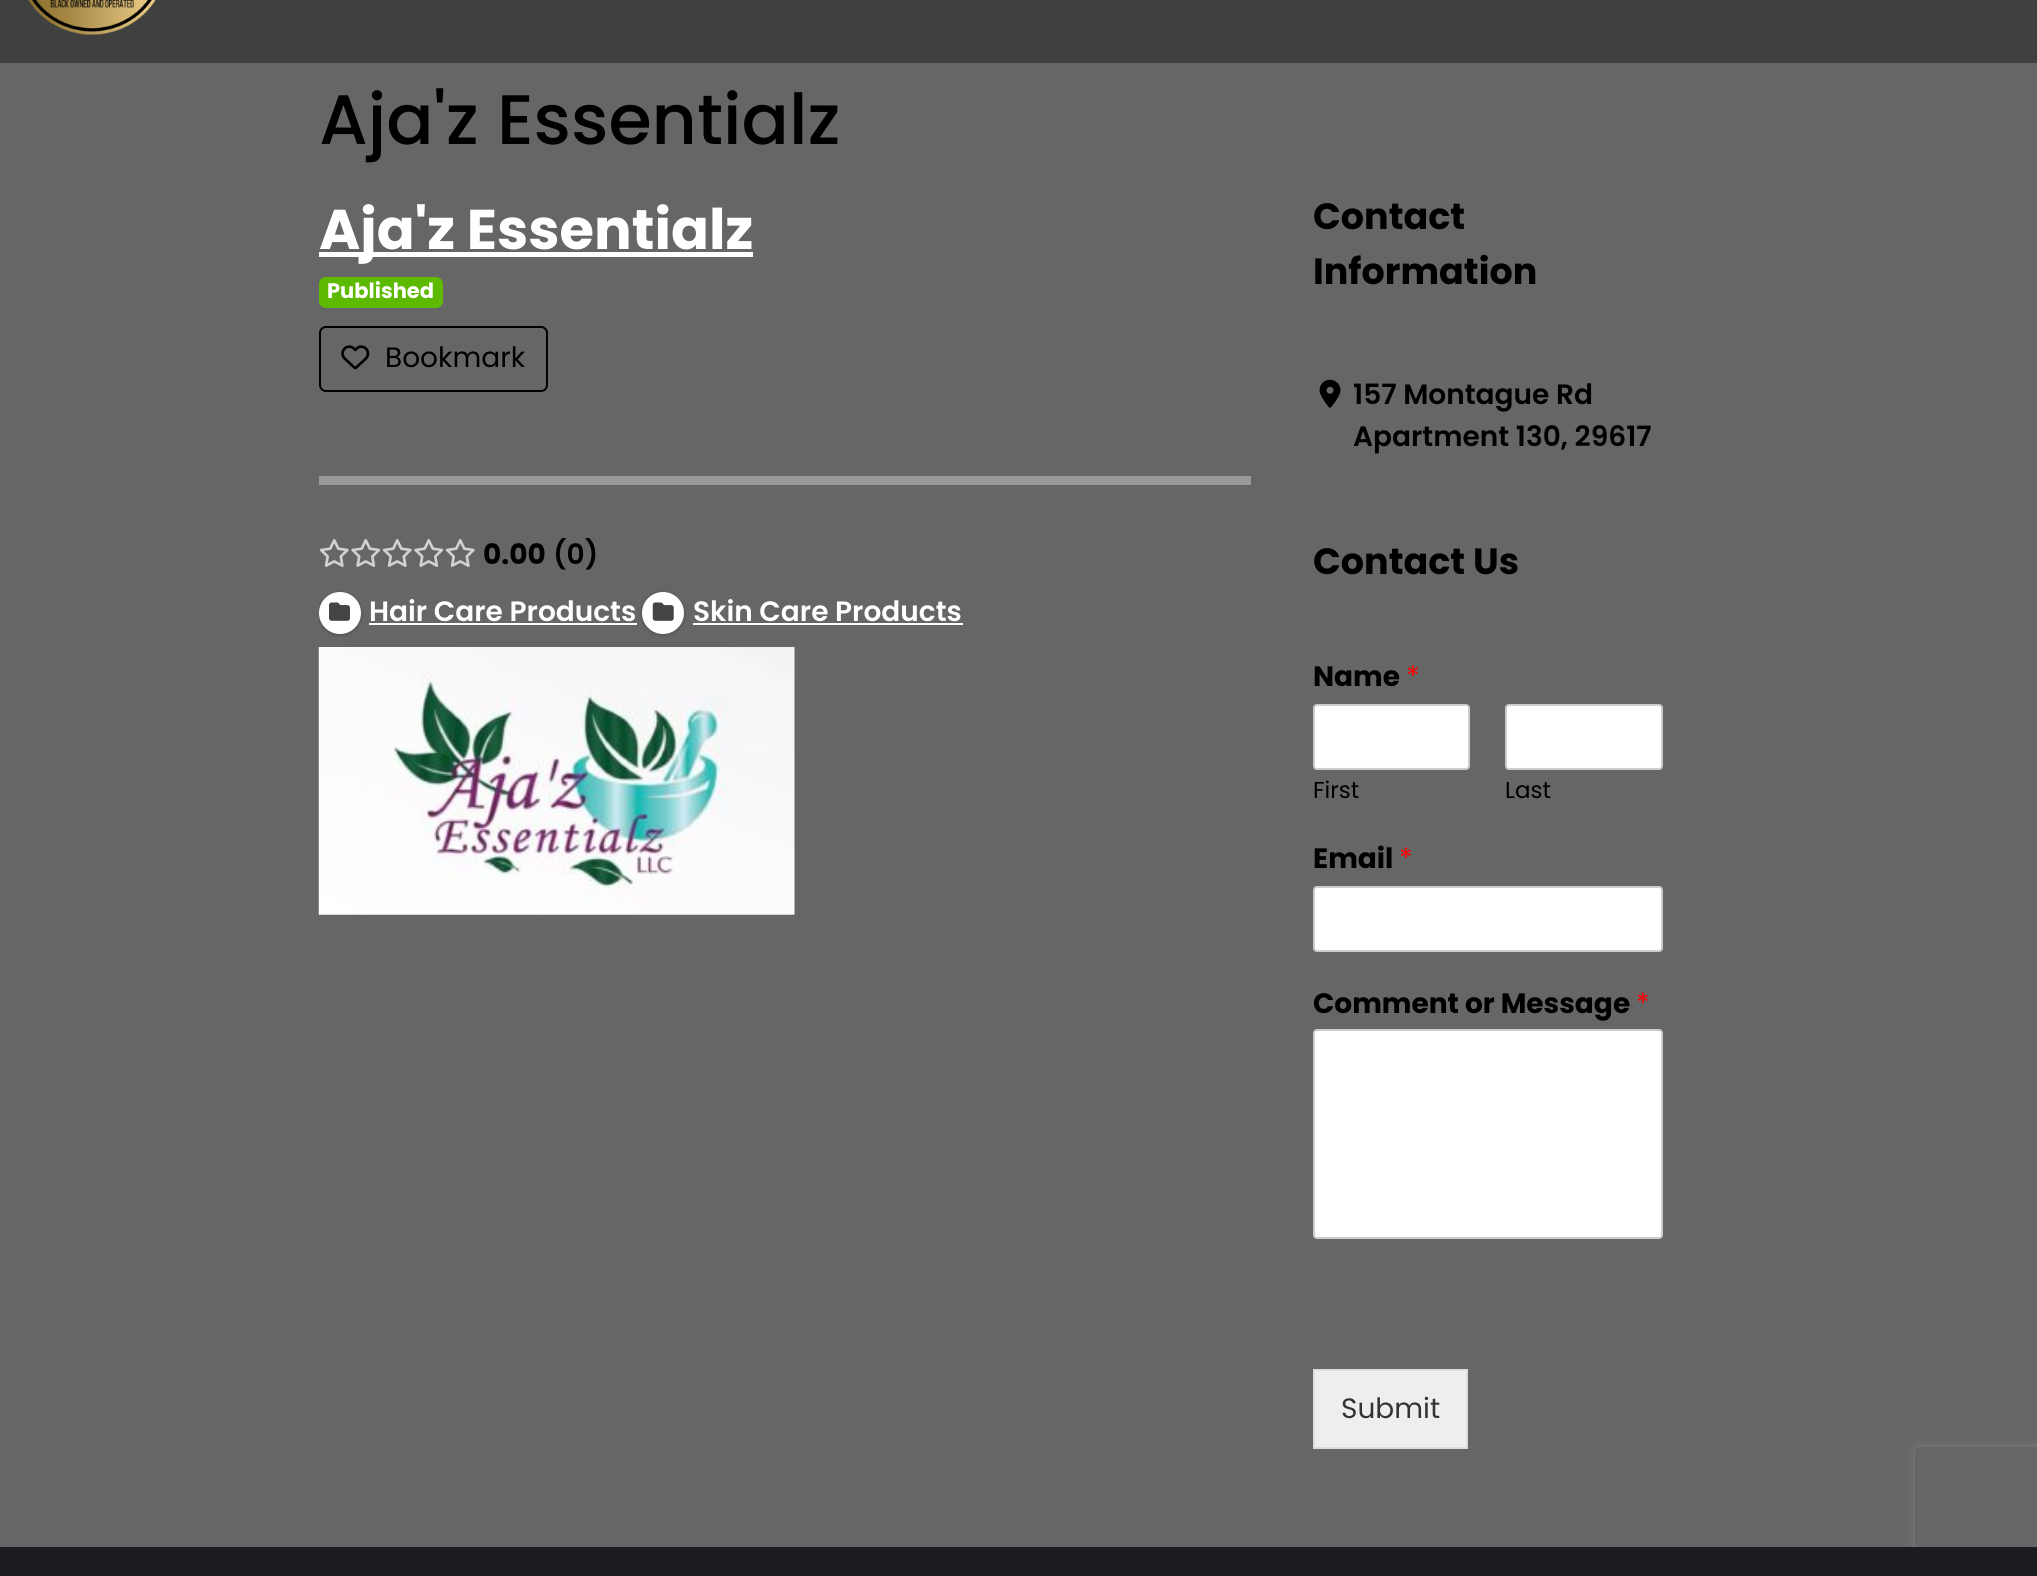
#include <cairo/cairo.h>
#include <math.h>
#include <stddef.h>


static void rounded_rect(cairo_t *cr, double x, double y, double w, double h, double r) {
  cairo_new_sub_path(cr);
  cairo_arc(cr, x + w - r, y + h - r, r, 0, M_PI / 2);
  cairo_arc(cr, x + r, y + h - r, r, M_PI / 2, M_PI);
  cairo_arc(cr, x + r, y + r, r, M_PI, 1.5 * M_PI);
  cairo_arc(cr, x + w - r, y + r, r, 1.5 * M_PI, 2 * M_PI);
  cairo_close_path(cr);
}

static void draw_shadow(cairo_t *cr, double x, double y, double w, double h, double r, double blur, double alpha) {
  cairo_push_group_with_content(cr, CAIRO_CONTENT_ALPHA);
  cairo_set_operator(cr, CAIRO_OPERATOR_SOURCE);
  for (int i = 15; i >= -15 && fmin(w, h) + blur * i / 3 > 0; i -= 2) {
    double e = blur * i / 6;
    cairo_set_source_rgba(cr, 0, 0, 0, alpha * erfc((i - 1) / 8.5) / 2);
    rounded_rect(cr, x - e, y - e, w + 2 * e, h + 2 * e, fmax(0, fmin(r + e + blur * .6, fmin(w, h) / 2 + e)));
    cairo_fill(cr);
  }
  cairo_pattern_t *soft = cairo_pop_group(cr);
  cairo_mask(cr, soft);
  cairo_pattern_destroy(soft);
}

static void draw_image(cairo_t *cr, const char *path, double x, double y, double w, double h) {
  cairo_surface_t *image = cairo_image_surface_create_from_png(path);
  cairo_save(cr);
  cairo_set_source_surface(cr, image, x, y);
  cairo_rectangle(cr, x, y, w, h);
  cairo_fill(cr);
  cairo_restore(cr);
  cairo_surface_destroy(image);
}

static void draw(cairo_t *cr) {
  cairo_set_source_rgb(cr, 102 / 255.0, 102 / 255.0, 102 / 255.0);
  cairo_paint(cr);
  cairo_set_source_rgb(cr, 64 / 255.0, 64 / 255.0, 64 / 255.0);
  cairo_rectangle(cr, 0, 0, 2037, 63);
  cairo_fill(cr);
  draw_image(cr, "images/1.png", 28, 0, 128, 35);
  cairo_set_source_rgb(cr, 1, 1, 1);
  cairo_rectangle(cr, 319, 252, 434, 5);
  cairo_fill(cr);
  cairo_set_source_rgb(cr, 94 / 255.0, 186 / 255.0, 0);
  rounded_rect(cr, 319, 277, 124, 31, 7);
  cairo_fill(cr);
  rounded_rect(cr, 320, 327, 227, 64, 6);
  cairo_set_source_rgb(cr, 0, 0, 0);
  cairo_stroke(cr);
  draw_image(cr, "images/2.png", 341, 345, 29, 25);
  cairo_set_source_rgb(cr, 153 / 255.0, 153 / 255.0, 153 / 255.0);
  cairo_rectangle(cr, 319, 476, 932, 9);
  cairo_fill(cr);
  draw_image(cr, "images/3.png", 319, 539, 30, 28);
  draw_image(cr, "images/4.png", 351, 539, 30, 28);
  draw_image(cr, "images/3.png", 382, 539, 30, 28);
  draw_image(cr, "images/4.png", 414, 539, 30, 28);
  draw_image(cr, "images/3.png", 445, 539, 30, 28);
  cairo_save(cr);
  cairo_rectangle(cr, 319, 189, 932, 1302);
  cairo_clip(cr);
  cairo_set_source_rgb(cr, 0, 0, 0);
  draw_shadow(cr, 319, 593, 42, 42, 21, 2, 0.24);
  cairo_restore(cr);
  cairo_set_source_rgb(cr, 1, 1, 1);
  cairo_arc(cr, 340, 613, 21, 0, 2 * M_PI);
  cairo_fill(cr);
  draw_image(cr, "images/5.png", 329, 602, 21, 19);
  cairo_rectangle(cr, 369, 623, 268, 2);
  cairo_fill(cr);
  cairo_set_source_rgb(cr, 0, 0, 0);
  draw_shadow(cr, 642, 593, 42, 42, 21, 2, 0.24);
  cairo_set_source_rgb(cr, 1, 1, 1);
  cairo_arc(cr, 663, 613, 21, 0, 2 * M_PI);
  cairo_fill(cr);
  draw_image(cr, "images/6.png", 652, 602, 22, 19);
  cairo_rectangle(cr, 693, 623, 270, 2);
  cairo_fill(cr);
  draw_image(cr, "images/7.png", 318, 647, 477, 268);
  draw_image(cr, "images/8.png", 1319, 379, 22, 29);
  rounded_rect(cr, 1314, 705, 155, 64, 3);
  cairo_fill_preserve(cr);
  cairo_set_source_rgb(cr, 204 / 255.0, 204 / 255.0, 204 / 255.0);
  cairo_stroke(cr);
  cairo_set_source_rgb(cr, 1, 1, 1);
  rounded_rect(cr, 1506, 705, 156, 64, 3);
  cairo_fill_preserve(cr);
  cairo_set_source_rgb(cr, 204 / 255.0, 204 / 255.0, 204 / 255.0);
  cairo_stroke(cr);
  cairo_set_source_rgb(cr, 1, 1, 1);
  rounded_rect(cr, 1314, 887, 348, 64, 3);
  cairo_fill_preserve(cr);
  cairo_set_source_rgb(cr, 204 / 255.0, 204 / 255.0, 204 / 255.0);
  cairo_stroke(cr);
  cairo_set_source_rgb(cr, 1, 1, 1);
  rounded_rect(cr, 1314, 1030, 348, 208, 3);
  cairo_fill_preserve(cr);
  cairo_set_source_rgb(cr, 204 / 255.0, 204 / 255.0, 204 / 255.0);
  cairo_stroke(cr);
  cairo_set_source_rgb(cr, 238 / 255.0, 238 / 255.0, 238 / 255.0);
  cairo_rectangle(cr, 1314, 1370, 153, 78);
  cairo_fill_preserve(cr);
  cairo_set_source_rgb(cr, 221 / 255.0, 221 / 255.0, 221 / 255.0);
  cairo_stroke(cr);
  cairo_save(cr);
  cairo_set_fill_rule(cr, CAIRO_FILL_RULE_EVEN_ODD);
  cairo_new_path(cr);
  cairo_move_to(cr, 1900, 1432);
  cairo_line_to(cr, 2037, 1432);
  cairo_line_to(cr, 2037, 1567);
  cairo_line_to(cr, 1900, 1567);
  cairo_close_path(cr);
  cairo_move_to(cr, 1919, 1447);
  cairo_line_to(cr, 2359, 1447);
  cairo_curve_to(cr, 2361, 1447, 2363, 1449, 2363, 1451);
  cairo_line_to(cr, 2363, 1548);
  cairo_curve_to(cr, 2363, 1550, 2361, 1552, 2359, 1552);
  cairo_line_to(cr, 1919, 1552);
  cairo_curve_to(cr, 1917, 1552, 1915, 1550, 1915, 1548);
  cairo_line_to(cr, 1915, 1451);
  cairo_curve_to(cr, 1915, 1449, 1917, 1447, 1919, 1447);
  cairo_close_path(cr);
  cairo_clip(cr);
  cairo_set_source_rgb(cr, 128 / 255.0, 128 / 255.0, 128 / 255.0);
  draw_shadow(cr, 1915, 1447, 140, 105, 4, 4.5, 1);
  cairo_restore(cr);
  cairo_set_source_rgb(cr, 26 / 255.0, 28 / 255.0, 32 / 255.0);
  cairo_rectangle(cr, 0, 1547, 2037, 29);
  cairo_fill(cr);
  cairo_select_font_face(cr, "Poppins Medium", CAIRO_FONT_SLANT_NORMAL, CAIRO_FONT_WEIGHT_NORMAL);
  cairo_set_font_size(cr, 70);
  cairo_set_source_rgb(cr, 0, 0, 0);
  cairo_move_to(cr, 319, 144);
  cairo_show_text(cr, "Aja'z Essentialz");
  cairo_select_font_face(cr, "Poppins", CAIRO_FONT_SLANT_NORMAL, CAIRO_FONT_WEIGHT_BOLD);
  cairo_set_font_size(cr, 56);
  cairo_set_source_rgb(cr, 1, 1, 1);
  cairo_move_to(cr, 319, 249);
  cairo_show_text(cr, "Aja'z Essentialz");
  cairo_set_font_size(cr, 21);
  cairo_move_to(cr, 327, 298);
  cairo_show_text(cr, "Published");
  cairo_select_font_face(cr, "Poppins", CAIRO_FONT_SLANT_NORMAL, CAIRO_FONT_WEIGHT_NORMAL);
  cairo_set_font_size(cr, 28);
  cairo_set_source_rgb(cr, 0, 0, 0);
  cairo_move_to(cr, 385, 367);
  cairo_show_text(cr, "Bookmark");
  cairo_select_font_face(cr, "Poppins", CAIRO_FONT_SLANT_NORMAL, CAIRO_FONT_WEIGHT_BOLD);
  cairo_move_to(cr, 483, 564);
  cairo_show_text(cr, "0.00");
  cairo_select_font_face(cr, "Poppins SemiBold", CAIRO_FONT_SLANT_NORMAL, CAIRO_FONT_WEIGHT_NORMAL);
  cairo_move_to(cr, 553, 564);
  cairo_show_text(cr, "(0)");
  cairo_set_source_rgb(cr, 1, 1, 1);
  cairo_move_to(cr, 369, 621);
  cairo_show_text(cr, "Hair Care Products");
  cairo_move_to(cr, 693, 621);
  cairo_show_text(cr, "Skin Care Products");
  cairo_select_font_face(cr, "Poppins", CAIRO_FONT_SLANT_NORMAL, CAIRO_FONT_WEIGHT_BOLD);
  cairo_set_font_size(cr, 36.5);
  cairo_set_source_rgb(cr, 0, 0, 0);
  cairo_move_to(cr, 1313, 229);
  cairo_show_text(cr, "Contact");
  cairo_move_to(cr, 1313, 284);
  cairo_show_text(cr, "Information");
  cairo_select_font_face(cr, "Poppins SemiBold", CAIRO_FONT_SLANT_NORMAL, CAIRO_FONT_WEIGHT_NORMAL);
  cairo_set_font_size(cr, 28);
  cairo_move_to(cr, 1353, 404);
  cairo_show_text(cr, "157 Montague Rd");
  cairo_move_to(cr, 1353, 446);
  cairo_show_text(cr, "Apartment 130, 29617");
  cairo_select_font_face(cr, "Poppins", CAIRO_FONT_SLANT_NORMAL, CAIRO_FONT_WEIGHT_BOLD);
  cairo_set_font_size(cr, 36.5);
  cairo_move_to(cr, 1313, 574);
  cairo_show_text(cr, "Contact Us");
  cairo_set_font_size(cr, 28);
  cairo_move_to(cr, 1313, 686);
  cairo_show_text(cr, "Name");
  cairo_select_font_face(cr, "Poppins", CAIRO_FONT_SLANT_NORMAL, CAIRO_FONT_WEIGHT_NORMAL);
  cairo_set_source_rgb(cr, 1, 0, 0);
  cairo_move_to(cr, 1406, 686);
  cairo_show_text(cr, "*");
  cairo_set_font_size(cr, 23);
  cairo_set_source_rgb(cr, 0, 0, 0);
  cairo_move_to(cr, 1313, 798);
  cairo_show_text(cr, "First");
  cairo_move_to(cr, 1505, 798);
  cairo_show_text(cr, "Last");
  cairo_select_font_face(cr, "Poppins", CAIRO_FONT_SLANT_NORMAL, CAIRO_FONT_WEIGHT_BOLD);
  cairo_set_font_size(cr, 28);
  cairo_move_to(cr, 1313, 868);
  cairo_show_text(cr, "Email");
  cairo_select_font_face(cr, "Poppins", CAIRO_FONT_SLANT_NORMAL, CAIRO_FONT_WEIGHT_NORMAL);
  cairo_set_source_rgb(cr, 1, 0, 0);
  cairo_move_to(cr, 1399, 868);
  cairo_show_text(cr, "*");
  cairo_select_font_face(cr, "Poppins", CAIRO_FONT_SLANT_NORMAL, CAIRO_FONT_WEIGHT_BOLD);
  cairo_set_source_rgb(cr, 0, 0, 0);
  cairo_move_to(cr, 1313, 1013);
  cairo_show_text(cr, "Comment or Message");
  cairo_select_font_face(cr, "Poppins", CAIRO_FONT_SLANT_NORMAL, CAIRO_FONT_WEIGHT_NORMAL);
  cairo_set_source_rgb(cr, 1, 0, 0);
  cairo_move_to(cr, 1636, 1013);
  cairo_show_text(cr, "*");
  cairo_set_source_rgb(cr, 51 / 255.0, 51 / 255.0, 51 / 255.0);
  cairo_move_to(cr, 1341, 1418);
  cairo_show_text(cr, "Submit");
}

int main(void) {
  cairo_surface_t *surface = cairo_image_surface_create(CAIRO_FORMAT_RGB24, 2037, 1576);
  cairo_t *cr = cairo_create(surface);
  cairo_font_options_t *options = cairo_font_options_create();
  cairo_font_options_set_hint_metrics(options, CAIRO_HINT_METRICS_OFF);
  cairo_font_options_set_hint_style(options, CAIRO_HINT_STYLE_NONE);
  cairo_set_font_options(cr, options);
  cairo_set_miter_limit(cr, 4);
  draw(cr);
  cairo_surface_write_to_png(surface, "out.png");
  cairo_font_options_destroy(options);
  cairo_destroy(cr);
  cairo_surface_destroy(surface);
  return 0;
}
